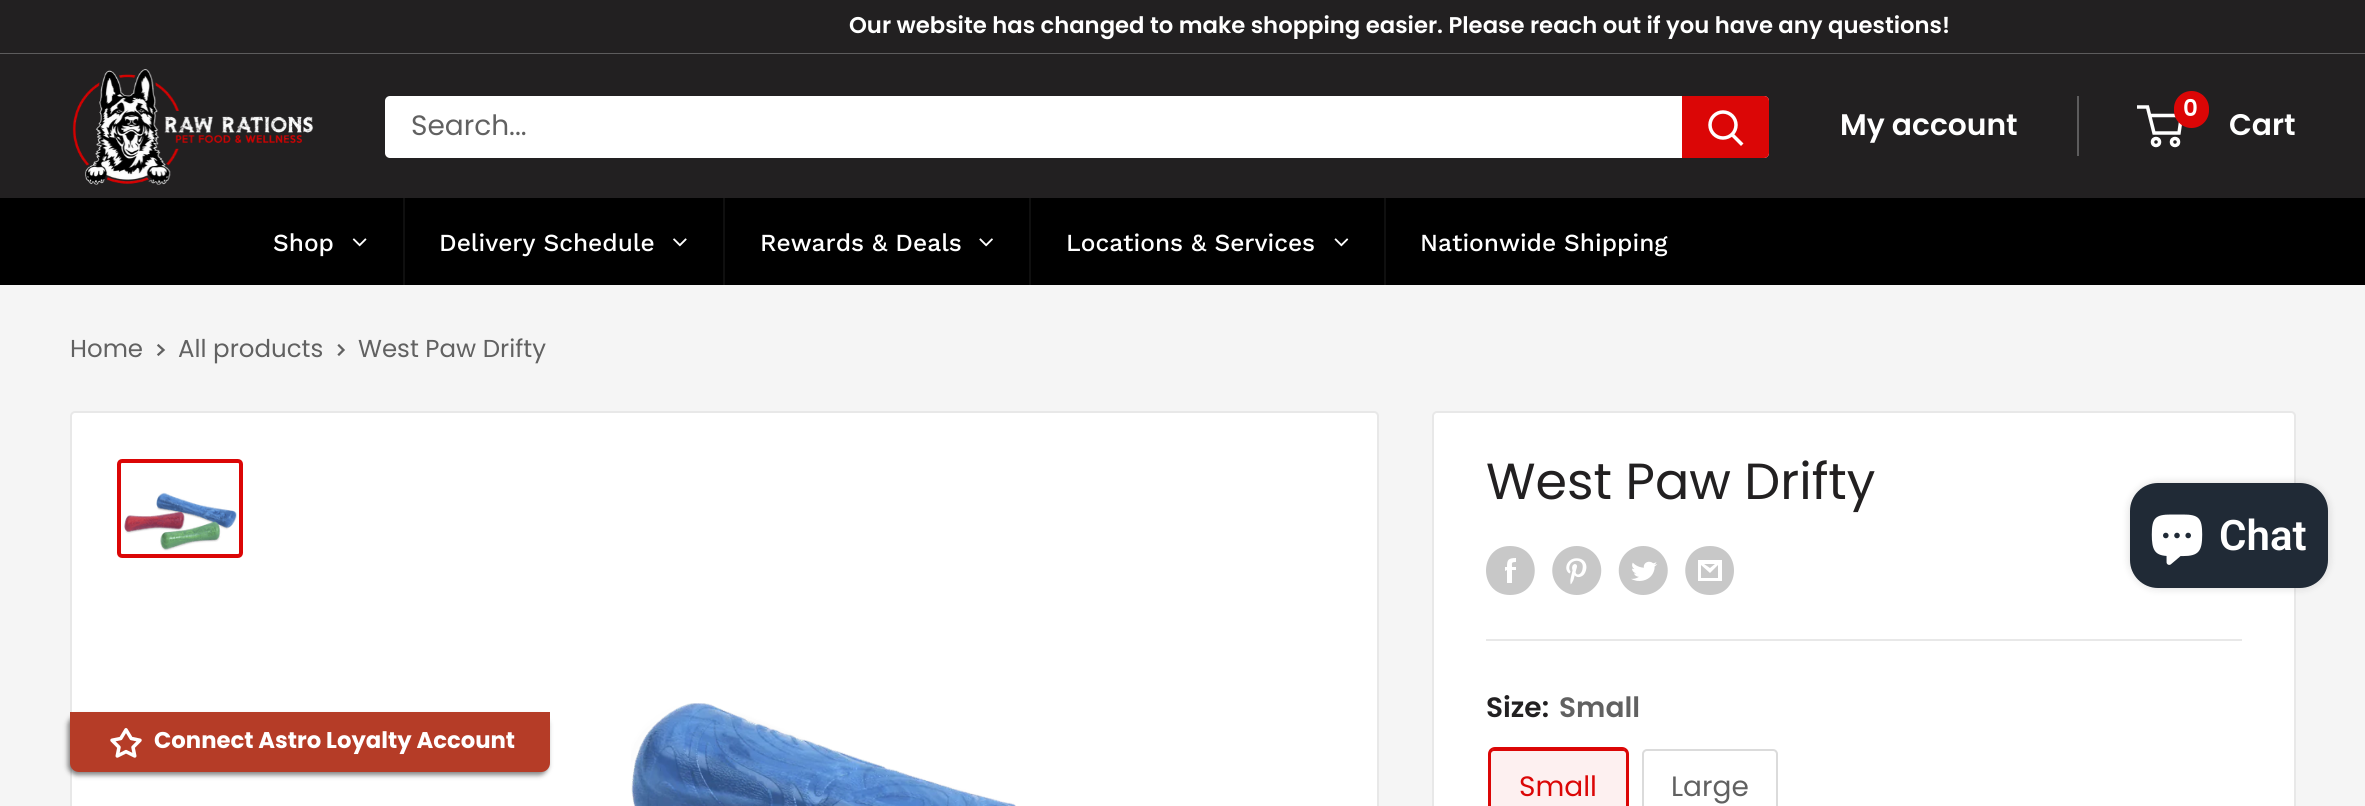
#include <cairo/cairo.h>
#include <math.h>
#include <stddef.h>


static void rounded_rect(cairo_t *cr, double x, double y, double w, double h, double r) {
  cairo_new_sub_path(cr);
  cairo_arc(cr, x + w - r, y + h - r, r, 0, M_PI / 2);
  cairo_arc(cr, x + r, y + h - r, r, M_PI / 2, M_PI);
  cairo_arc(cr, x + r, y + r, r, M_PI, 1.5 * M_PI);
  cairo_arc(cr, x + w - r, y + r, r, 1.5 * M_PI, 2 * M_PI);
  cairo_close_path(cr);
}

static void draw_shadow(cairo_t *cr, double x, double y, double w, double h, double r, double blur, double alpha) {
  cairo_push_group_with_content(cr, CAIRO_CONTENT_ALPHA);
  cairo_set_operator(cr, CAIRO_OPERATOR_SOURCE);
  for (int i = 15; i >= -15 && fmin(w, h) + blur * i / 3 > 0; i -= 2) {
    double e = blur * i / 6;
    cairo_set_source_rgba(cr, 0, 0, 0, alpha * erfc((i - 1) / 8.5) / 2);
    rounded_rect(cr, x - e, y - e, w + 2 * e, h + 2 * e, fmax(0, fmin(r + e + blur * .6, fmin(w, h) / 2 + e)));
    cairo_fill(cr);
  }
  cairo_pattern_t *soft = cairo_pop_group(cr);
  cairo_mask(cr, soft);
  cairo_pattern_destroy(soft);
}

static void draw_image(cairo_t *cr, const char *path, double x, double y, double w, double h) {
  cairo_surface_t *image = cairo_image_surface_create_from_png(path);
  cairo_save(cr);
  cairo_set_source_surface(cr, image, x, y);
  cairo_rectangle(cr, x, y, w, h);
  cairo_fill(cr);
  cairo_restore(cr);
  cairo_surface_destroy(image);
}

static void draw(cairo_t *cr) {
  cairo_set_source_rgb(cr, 245 / 255.0, 245 / 255.0, 245 / 255.0);
  cairo_paint(cr);
  cairo_set_source_rgb(cr, 34 / 255.0, 32 / 255.0, 33 / 255.0);
  cairo_rectangle(cr, 0, 0, 2365, 53);
  cairo_fill(cr);
  cairo_set_source_rgb(cr, 93 / 255.0, 92 / 255.0, 93 / 255.0);
  cairo_rectangle(cr, 0, 53, 2365, 1);
  cairo_fill(cr);
  cairo_set_source_rgb(cr, 34 / 255.0, 32 / 255.0, 33 / 255.0);
  cairo_rectangle(cr, 0, 54, 2365, 144);
  cairo_fill(cr);
  draw_image(cr, "images/1.png", 72, 69, 242, 116);
  cairo_set_source_rgb(cr, 1, 1, 1);
  rounded_rect(cr, 385, 96, 1384, 62, 5);
  cairo_fill(cr);
  cairo_set_source_rgb(cr, 219 / 255.0, 6 / 255.0, 6 / 255.0);
  cairo_new_path(cr);
  cairo_move_to(cr, 1682, 96);
  cairo_line_to(cr, 1764, 96);
  cairo_curve_to(cr, 1767, 96, 1769, 98, 1769, 101);
  cairo_line_to(cr, 1769, 153);
  cairo_curve_to(cr, 1769, 156, 1767, 158, 1764, 158);
  cairo_line_to(cr, 1682, 158);
  cairo_close_path(cr);
  cairo_fill(cr);
  cairo_new_path(cr);
  cairo_move_to(cr, 1741, 143.5);
  cairo_line_to(cr, 1732.5, 135);
  cairo_set_source_rgb(cr, 1, 1, 1);
  cairo_set_line_width(cr, 3.5);
  cairo_set_line_cap(cr, CAIRO_LINE_CAP_SQUARE);
  cairo_stroke(cr);
  cairo_arc(cr, 1723, 125, 13, 0, 2 * M_PI);
  cairo_set_line_cap(cr, CAIRO_LINE_CAP_BUTT);
  cairo_stroke(cr);
  cairo_set_source_rgb(cr, 93 / 255.0, 92 / 255.0, 93 / 255.0);
  cairo_rectangle(cr, 2077, 96, 2, 60);
  cairo_fill(cr);
  cairo_arc(cr, 2156, 142, 3.5, 0, 2 * M_PI);
  cairo_set_source_rgb(cr, 1, 1, 1);
  cairo_stroke(cr);
  cairo_arc(cr, 2175, 142, 3.5, 0, 2 * M_PI);
  cairo_stroke(cr);
  cairo_new_path(cr);
  cairo_move_to(cr, 2149.5, 115.5);
  cairo_line_to(cr, 2181.5, 115.5);
  cairo_line_to(cr, 2179, 133);
  cairo_line_to(cr, 2154, 133);
  cairo_line_to(cr, 2147.5, 107);
  cairo_line_to(cr, 2137, 107);
  cairo_stroke(cr);
  cairo_set_source_rgb(cr, 219 / 255.0, 6 / 255.0, 6 / 255.0);
  rounded_rect(cr, 2174, 91, 35, 37, 17.5);
  cairo_fill(cr);
  cairo_set_source_rgb(cr, 0, 0, 0);
  cairo_rectangle(cr, 0, 198, 2365, 87);
  cairo_fill(cr);
  draw_image(cr, "images/2.png", 352, 238, 15, 9);
  cairo_set_source_rgb(cr, 15 / 255.0, 15 / 255.0, 15 / 255.0);
  cairo_rectangle(cr, 403, 198, 2, 87);
  cairo_fill(cr);
  draw_image(cr, "images/3.png", 673, 238, 14, 9);
  cairo_rectangle(cr, 723, 198, 2, 87);
  cairo_fill(cr);
  draw_image(cr, "images/4.png", 979, 238, 14, 9);
  cairo_rectangle(cr, 1029, 198, 2, 87);
  cairo_fill(cr);
  draw_image(cr, "images/5.png", 1334, 238, 15, 9);
  cairo_rectangle(cr, 1384, 198, 2, 87);
  cairo_fill(cr);
  cairo_new_path(cr);
  cairo_move_to(cr, 158.5, 345.5);
  cairo_line_to(cr, 163.5, 350);
  cairo_line_to(cr, 158.5, 354.5);
  cairo_set_source_rgb(cr, 97 / 255.0, 97 / 255.0, 97 / 255.0);
  cairo_set_line_width(cr, 2.3);
  cairo_set_line_cap(cr, CAIRO_LINE_CAP_SQUARE);
  cairo_stroke(cr);
  cairo_new_path(cr);
  cairo_move_to(cr, 339, 345.5);
  cairo_line_to(cr, 343.5, 350);
  cairo_line_to(cr, 339, 354.5);
  cairo_stroke(cr);
  cairo_set_source_rgb(cr, 1, 1, 1);
  rounded_rect(cr, 71, 412, 1307, 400, 4);
  cairo_fill_preserve(cr);
  cairo_set_source_rgb(cr, 232 / 255.0, 232 / 255.0, 232 / 255.0);
  cairo_set_line_width(cr, 2);
  cairo_set_line_cap(cr, CAIRO_LINE_CAP_BUTT);
  cairo_stroke(cr);
  rounded_rect(cr, 119, 461, 122, 95, 3);
  cairo_set_source_rgb(cr, 219 / 255.0, 6 / 255.0, 6 / 255.0);
  cairo_set_line_width(cr, 4);
  cairo_stroke(cr);
  draw_image(cr, "images/6.png", 124, 492, 113, 59);
  draw_image(cr, "images/7.png", 631, 703, 385, 103);
  cairo_set_source_rgb(cr, 1, 1, 1);
  rounded_rect(cr, 1433, 412, 862, 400, 4);
  cairo_fill_preserve(cr);
  cairo_set_source_rgb(cr, 232 / 255.0, 232 / 255.0, 232 / 255.0);
  cairo_set_line_width(cr, 2);
  cairo_stroke(cr);
  cairo_set_source_rgb(cr, 200 / 255.0, 200 / 255.0, 200 / 255.0);
  cairo_set_fill_rule(cr, CAIRO_FILL_RULE_EVEN_ODD);
  cairo_new_path(cr);
  cairo_move_to(cr, 1510, 595);
  cairo_curve_to(cr, 1478, 595, 1478, 546, 1510, 546);
  cairo_curve_to(cr, 1543, 546, 1543, 595, 1510, 595);
  cairo_close_path(cr);
  cairo_move_to(cr, 1516, 567);
  cairo_line_to(cr, 1512, 567);
  cairo_curve_to(cr, 1512, 563, 1511, 562, 1516, 562);
  cairo_line_to(cr, 1516, 558);
  cairo_curve_to(cr, 1508, 558, 1507, 560, 1507, 567);
  cairo_line_to(cr, 1505, 567);
  cairo_line_to(cr, 1505, 571);
  cairo_line_to(cr, 1507, 570);
  cairo_line_to(cr, 1507, 583);
  cairo_line_to(cr, 1512, 583);
  cairo_line_to(cr, 1512, 570);
  cairo_line_to(cr, 1516, 570);
  cairo_close_path(cr);
  cairo_fill(cr);
  draw_image(cr, "images/8.png", 1552, 546, 50, 49);
  draw_image(cr, "images/9.png", 1618, 546, 50, 49);
  cairo_set_fill_rule(cr, CAIRO_FILL_RULE_WINDING);
  cairo_new_path(cr);
  cairo_move_to(cr, 1710, 595);
  cairo_curve_to(cr, 1677, 595, 1677, 546, 1710, 546);
  cairo_curve_to(cr, 1742, 546, 1742, 595, 1710, 595);
  cairo_close_path(cr);
  cairo_move_to(cr, 1704, 564);
  cairo_line_to(cr, 1715, 564);
  cairo_line_to(cr, 1710, 568);
  cairo_close_path(cr);
  cairo_move_to(cr, 1718, 565);
  cairo_line_to(cr, 1718, 578);
  cairo_line_to(cr, 1701, 578);
  cairo_line_to(cr, 1701, 565);
  cairo_line_to(cr, 1710, 573);
  cairo_close_path(cr);
  cairo_move_to(cr, 1722, 560);
  cairo_line_to(cr, 1698, 560);
  cairo_line_to(cr, 1698, 581);
  cairo_line_to(cr, 1722, 581);
  cairo_close_path(cr);
  cairo_fill(cr);
  cairo_set_source_rgb(cr, 232 / 255.0, 232 / 255.0, 232 / 255.0);
  cairo_rectangle(cr, 1486, 639, 756, 2);
  cairo_fill(cr);
  rounded_rect(cr, 1489, 748, 139, 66, 6);
  cairo_set_source_rgb(cr, 219 / 255.0, 6 / 255.0, 6 / 255.0);
  cairo_stroke(cr);
  cairo_set_source_rgba(cr, 219 / 255.0, 6 / 255.0, 6 / 255.0, 0.06);
  cairo_rectangle(cr, 1489, 749, 139, 57);
  cairo_fill(cr);
  rounded_rect(cr, 1490, 750, 137, 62, 4);
  cairo_set_source_rgb(cr, 219 / 255.0, 6 / 255.0, 6 / 255.0);
  cairo_stroke(cr);
  rounded_rect(cr, 1643, 750, 134, 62, 4);
  cairo_set_source_rgb(cr, 219 / 255.0, 219 / 255.0, 219 / 255.0);
  cairo_stroke(cr);
  cairo_set_source_rgb(cr, 0, 0, 0);
  draw_shadow(cr, 2130, 483, 198, 105, 28, 4.5, 0.15);
  cairo_set_source_rgb(cr, 32 / 255.0, 42 / 255.0, 54 / 255.0);
  rounded_rect(cr, 2130, 483, 198, 105, 28);
  cairo_fill(cr);
  draw_image(cr, "images/10.png", 2151, 514, 52, 51);
  cairo_set_source_rgb(cr, 0, 0, 0);
  draw_shadow(cr, 68, 716, 480, 59, 9, 2.5, 0.5);
  cairo_set_source_rgb(cr, 181 / 255.0, 60 / 255.0, 39 / 255.0);
  cairo_new_path(cr);
  cairo_move_to(cr, 70, 712);
  cairo_line_to(cr, 550, 712);
  cairo_line_to(cr, 550, 763);
  cairo_curve_to(cr, 550, 768, 546, 772, 541, 772);
  cairo_line_to(cr, 79, 772);
  cairo_curve_to(cr, 74, 772, 70, 768, 70, 763);
  cairo_close_path(cr);
  cairo_fill(cr);
  draw_image(cr, "images/11.png", 110, 728, 32, 30);
  cairo_select_font_face(cr, "Poppins SemiBold", CAIRO_FONT_SLANT_NORMAL, CAIRO_FONT_WEIGHT_NORMAL);
  cairo_set_font_size(cr, 22.75);
  cairo_set_source_rgb(cr, 1, 1, 1);
  cairo_move_to(cr, 849, 33);
  cairo_show_text(cr, "Our website has changed to make shopping easier. Please reach out if you have any questions!");
  cairo_select_font_face(cr, "Poppins", CAIRO_FONT_SLANT_NORMAL, CAIRO_FONT_WEIGHT_NORMAL);
  cairo_set_font_size(cr, 28);
  cairo_set_source_rgb(cr, 97 / 255.0, 97 / 255.0, 97 / 255.0);
  cairo_move_to(cr, 411, 135);
  cairo_show_text(cr, "Search...");
  cairo_select_font_face(cr, "Poppins SemiBold", CAIRO_FONT_SLANT_NORMAL, CAIRO_FONT_WEIGHT_NORMAL);
  cairo_set_font_size(cr, 29.75);
  cairo_set_source_rgb(cr, 1, 1, 1);
  cairo_move_to(cr, 1840, 135);
  cairo_show_text(cr, "My account");
  cairo_set_font_size(cr, 23);
  cairo_move_to(cr, 2183, 116);
  cairo_show_text(cr, "0");
  cairo_set_font_size(cr, 29.75);
  cairo_move_to(cr, 2229, 135);
  cairo_show_text(cr, "Cart");
  cairo_select_font_face(cr, "Work Sans Medium", CAIRO_FONT_SLANT_NORMAL, CAIRO_FONT_WEIGHT_NORMAL);
  cairo_set_font_size(cr, 24.5);
  cairo_move_to(cr, 273, 251);
  cairo_show_text(cr, "Shop");
  cairo_move_to(cr, 439, 251);
  cairo_show_text(cr, "Delivery Schedule");
  cairo_move_to(cr, 760, 251);
  cairo_show_text(cr, "Rewards & Deals");
  cairo_move_to(cr, 1066, 251);
  cairo_show_text(cr, "Locations & Services");
  cairo_move_to(cr, 1420, 251);
  cairo_show_text(cr, "Nationwide Shipping");
  cairo_select_font_face(cr, "Poppins", CAIRO_FONT_SLANT_NORMAL, CAIRO_FONT_WEIGHT_NORMAL);
  cairo_set_source_rgb(cr, 97 / 255.0, 97 / 255.0, 97 / 255.0);
  cairo_move_to(cr, 70, 357);
  cairo_show_text(cr, "Home");
  cairo_move_to(cr, 178, 357);
  cairo_show_text(cr, "All products");
  cairo_move_to(cr, 358, 357);
  cairo_show_text(cr, "West Paw Drifty");
  cairo_set_font_size(cr, 50.75);
  cairo_set_source_rgb(cr, 34 / 255.0, 32 / 255.0, 33 / 255.0);
  cairo_move_to(cr, 1486, 499);
  cairo_show_text(cr, "West Paw Drifty");
  cairo_select_font_face(cr, "Poppins SemiBold", CAIRO_FONT_SLANT_NORMAL, CAIRO_FONT_WEIGHT_NORMAL);
  cairo_set_font_size(cr, 28);
  cairo_move_to(cr, 1486, 717);
  cairo_show_text(cr, "Size:");
  cairo_set_source_rgb(cr, 97 / 255.0, 97 / 255.0, 97 / 255.0);
  cairo_move_to(cr, 1559, 717);
  cairo_show_text(cr, "Small");
  cairo_select_font_face(cr, "Poppins", CAIRO_FONT_SLANT_NORMAL, CAIRO_FONT_WEIGHT_NORMAL);
  cairo_set_source_rgb(cr, 219 / 255.0, 6 / 255.0, 6 / 255.0);
  cairo_move_to(cr, 1519, 796);
  cairo_show_text(cr, "Small");
  cairo_set_source_rgb(cr, 97 / 255.0, 97 / 255.0, 97 / 255.0);
  cairo_move_to(cr, 1671, 796);
  cairo_show_text(cr, "Large");
  cairo_select_font_face(cr, "Roboto SemiBold", CAIRO_FONT_SLANT_NORMAL, CAIRO_FONT_WEIGHT_NORMAL);
  cairo_set_font_size(cr, 42);
  cairo_set_source_rgb(cr, 1, 1, 1);
  cairo_move_to(cr, 2219, 550);
  cairo_show_text(cr, "Chat");
  cairo_select_font_face(cr, "Poppins", CAIRO_FONT_SLANT_NORMAL, CAIRO_FONT_WEIGHT_BOLD);
  cairo_set_font_size(cr, 22.75);
  cairo_move_to(cr, 154, 748);
  cairo_show_text(cr, "Connect Astro Loyalty Account");
}

int main(void) {
  cairo_surface_t *surface = cairo_image_surface_create(CAIRO_FORMAT_RGB24, 2365, 806);
  cairo_t *cr = cairo_create(surface);
  cairo_font_options_t *options = cairo_font_options_create();
  cairo_font_options_set_hint_metrics(options, CAIRO_HINT_METRICS_OFF);
  cairo_font_options_set_hint_style(options, CAIRO_HINT_STYLE_NONE);
  cairo_set_font_options(cr, options);
  cairo_set_miter_limit(cr, 4);
  draw(cr);
  cairo_surface_write_to_png(surface, "out.png");
  cairo_font_options_destroy(options);
  cairo_destroy(cr);
  cairo_surface_destroy(surface);
  return 0;
}
